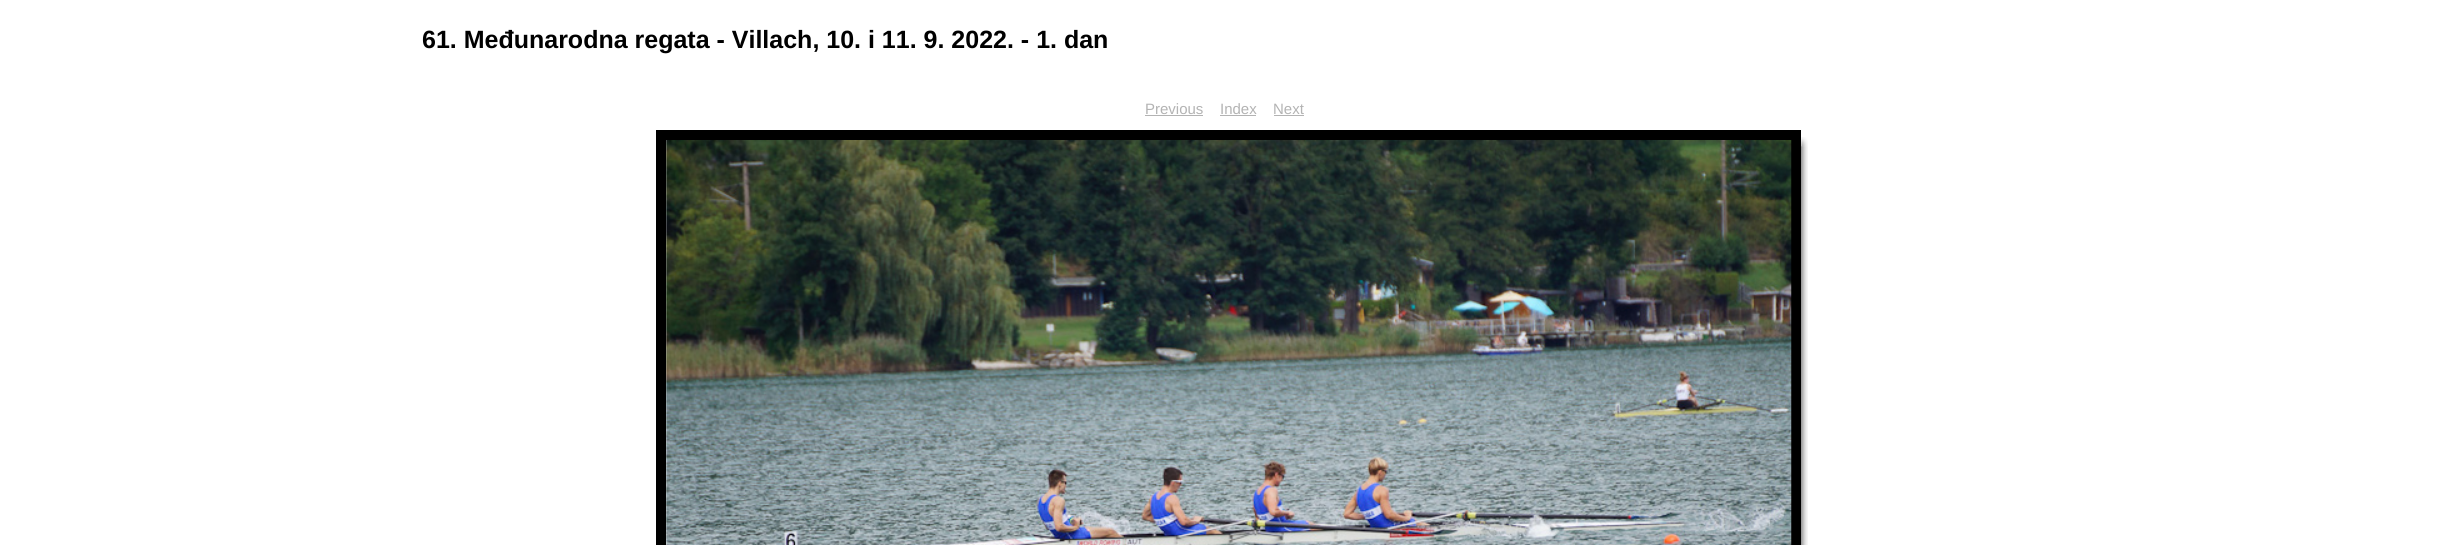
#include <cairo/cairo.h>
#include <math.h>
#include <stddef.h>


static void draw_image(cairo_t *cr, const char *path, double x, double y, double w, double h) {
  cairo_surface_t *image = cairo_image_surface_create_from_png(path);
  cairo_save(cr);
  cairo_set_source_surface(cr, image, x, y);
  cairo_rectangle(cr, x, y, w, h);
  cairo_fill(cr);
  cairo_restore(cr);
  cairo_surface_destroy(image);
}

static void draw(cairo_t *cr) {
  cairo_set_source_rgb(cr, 1, 1, 1);
  cairo_paint(cr);
  cairo_set_source_rgb(cr, 179 / 255.0, 179 / 255.0, 179 / 255.0);
  cairo_rectangle(cr, 1145, 115, 58, 1);
  cairo_fill(cr);
  cairo_rectangle(cr, 1220, 115, 36, 1);
  cairo_fill(cr);
  cairo_rectangle(cr, 1274, 115, 30, 1);
  cairo_fill(cr);
  draw_image(cr, "images/1.png", 1801, 146, 7, 399);
  cairo_rectangle(cr, 661, 135, 1135, 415);
  cairo_set_source_rgb(cr, 0, 0, 0);
  cairo_set_line_width(cr, 10);
  cairo_stroke(cr);
  draw_image(cr, "images/2.png", 666, 140, 1126, 405);
  draw_image(cr, "images/3.png", 1801, 137, 7, 10);
  cairo_select_font_face(cr, "Liberation Sans", CAIRO_FONT_SLANT_NORMAL, CAIRO_FONT_WEIGHT_BOLD);
  cairo_set_font_size(cr, 25);
  cairo_move_to(cr, 422, 48);
  cairo_show_text(cr, "61. Međunarodna regata - Villach, 10. i 11. 9. 2022. - 1. dan");
  cairo_select_font_face(cr, "Liberation Sans", CAIRO_FONT_SLANT_NORMAL, CAIRO_FONT_WEIGHT_NORMAL);
  cairo_set_font_size(cr, 15);
  cairo_set_source_rgb(cr, 179 / 255.0, 179 / 255.0, 179 / 255.0);
  cairo_move_to(cr, 1145, 114);
  cairo_show_text(cr, "Previous");
  cairo_move_to(cr, 1220, 114);
  cairo_show_text(cr, "Index");
  cairo_move_to(cr, 1273, 114);
  cairo_show_text(cr, "Next");
}

int main(void) {
  cairo_surface_t *surface = cairo_image_surface_create(CAIRO_FORMAT_RGB24, 2455, 545);
  cairo_t *cr = cairo_create(surface);
  cairo_font_options_t *options = cairo_font_options_create();
  cairo_font_options_set_hint_metrics(options, CAIRO_HINT_METRICS_OFF);
  cairo_font_options_set_hint_style(options, CAIRO_HINT_STYLE_NONE);
  cairo_set_font_options(cr, options);
  cairo_set_miter_limit(cr, 4);
  draw(cr);
  cairo_surface_write_to_png(surface, "out.png");
  cairo_font_options_destroy(options);
  cairo_destroy(cr);
  cairo_surface_destroy(surface);
  return 0;
}
